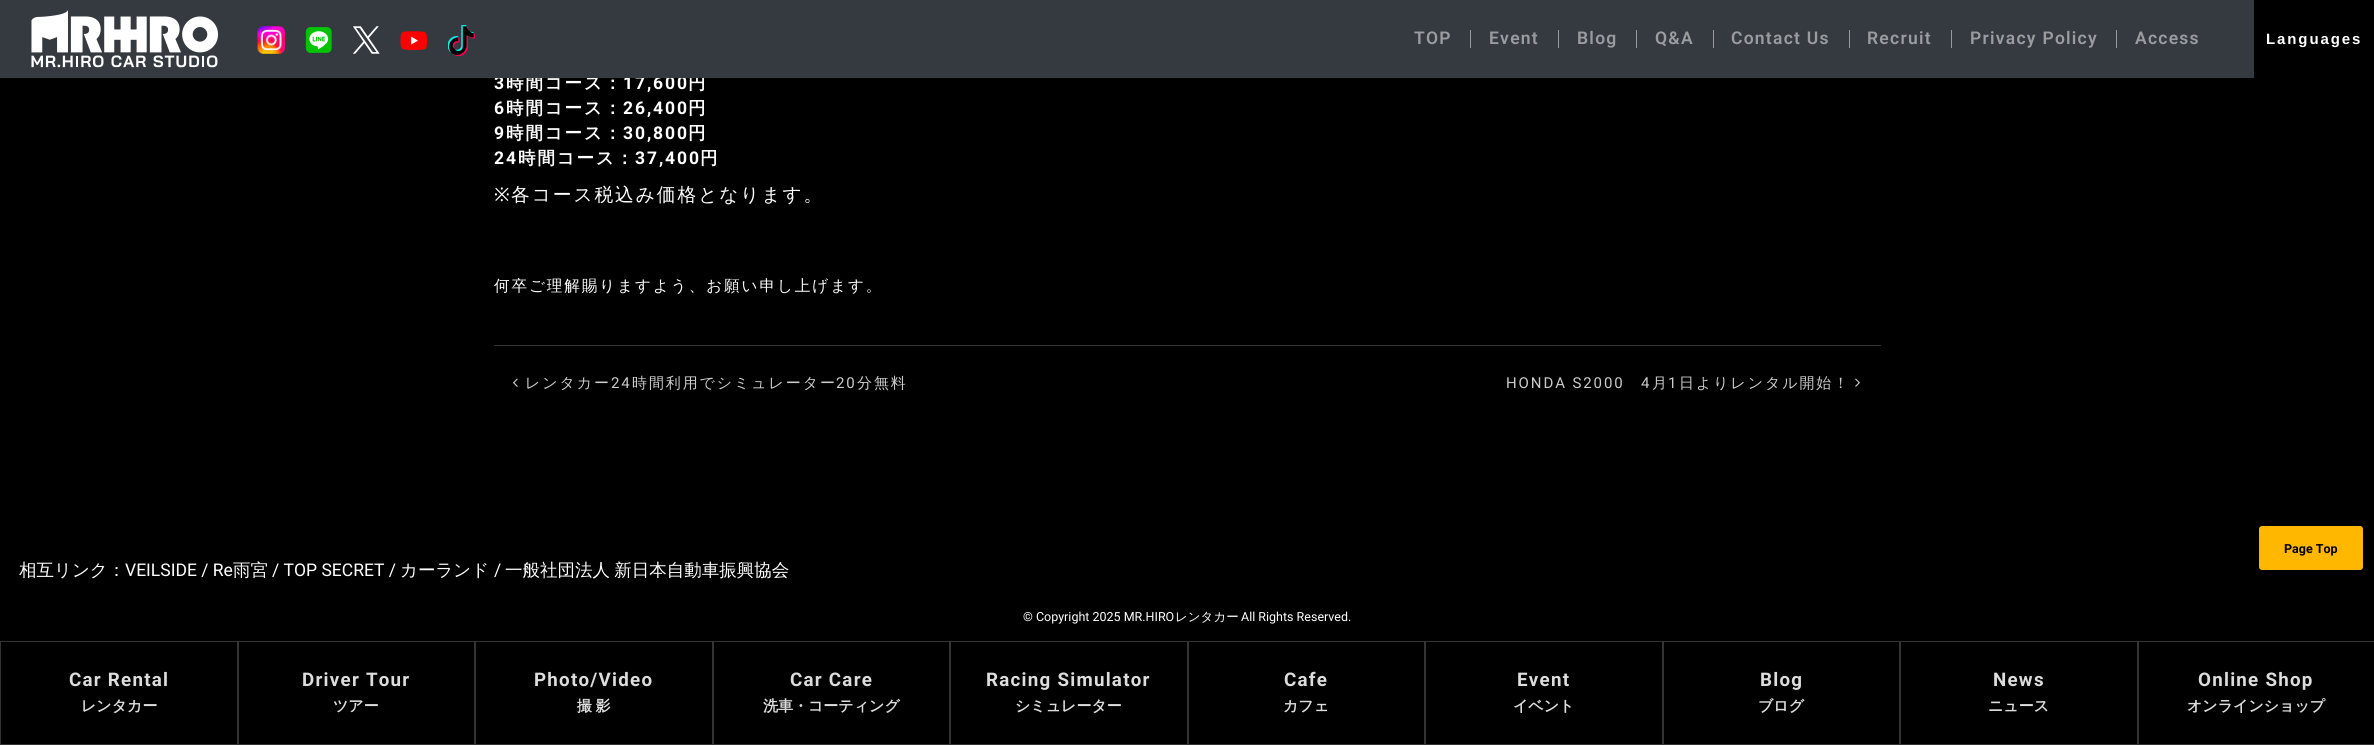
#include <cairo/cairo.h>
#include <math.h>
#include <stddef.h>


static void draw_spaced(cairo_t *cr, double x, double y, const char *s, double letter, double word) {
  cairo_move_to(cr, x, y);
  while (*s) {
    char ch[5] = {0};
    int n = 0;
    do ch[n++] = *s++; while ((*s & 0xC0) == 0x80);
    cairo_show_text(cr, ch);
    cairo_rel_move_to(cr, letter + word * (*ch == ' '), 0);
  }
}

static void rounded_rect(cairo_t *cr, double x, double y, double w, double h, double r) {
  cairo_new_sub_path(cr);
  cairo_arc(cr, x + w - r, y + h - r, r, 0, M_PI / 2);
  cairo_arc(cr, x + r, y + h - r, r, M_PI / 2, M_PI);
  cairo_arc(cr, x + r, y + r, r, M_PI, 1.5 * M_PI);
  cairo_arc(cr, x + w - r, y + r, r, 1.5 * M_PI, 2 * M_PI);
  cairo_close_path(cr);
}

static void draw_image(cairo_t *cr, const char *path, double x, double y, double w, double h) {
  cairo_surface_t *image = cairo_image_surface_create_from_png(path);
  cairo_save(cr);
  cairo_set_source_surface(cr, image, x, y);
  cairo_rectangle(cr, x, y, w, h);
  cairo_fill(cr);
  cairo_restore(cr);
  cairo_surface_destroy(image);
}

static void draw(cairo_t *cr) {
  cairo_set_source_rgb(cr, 0, 0, 0);
  cairo_paint(cr);
  cairo_set_source_rgb(cr, 51 / 255.0, 51 / 255.0, 51 / 255.0);
  cairo_rectangle(cr, 494, 345, 1387, 1);
  cairo_fill(cr);
  draw_image(cr, "images/7.png", 512, 378, 6, 9);
  draw_image(cr, "images/8.png", 1855, 378, 5, 9);
  cairo_set_source_rgb(cr, 1, 183 / 255.0, 0);
  rounded_rect(cr, 2259, 526, 104, 44, 3);
  cairo_fill(cr);
  cairo_rectangle(cr, 0.5, 641.5, 237, 103);
  cairo_set_source_rgb(cr, 51 / 255.0, 51 / 255.0, 51 / 255.0);
  cairo_set_line_width(cr, 1);
  cairo_stroke(cr);
  cairo_rectangle(cr, 238.5, 641.5, 236, 103);
  cairo_stroke(cr);
  cairo_rectangle(cr, 475.5, 641.5, 237, 103);
  cairo_stroke(cr);
  cairo_rectangle(cr, 713.5, 641.5, 236, 103);
  cairo_stroke(cr);
  cairo_rectangle(cr, 950.5, 641.5, 237, 103);
  cairo_stroke(cr);
  cairo_rectangle(cr, 1188.5, 641.5, 236, 103);
  cairo_stroke(cr);
  cairo_rectangle(cr, 1425.5, 641.5, 237, 103);
  cairo_stroke(cr);
  cairo_rectangle(cr, 1663.5, 641.5, 236, 103);
  cairo_stroke(cr);
  cairo_rectangle(cr, 1900.5, 641.5, 237, 103);
  cairo_stroke(cr);
  cairo_rectangle(cr, 2138.5, 641.5, 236, 103);
  cairo_stroke(cr);
  cairo_select_font_face(cr, "Liberation Sans", CAIRO_FONT_SLANT_NORMAL, CAIRO_FONT_WEIGHT_BOLD);
  cairo_set_font_size(cr, 15);
  cairo_set_source_rgb(cr, 1, 1, 1);
  draw_spaced(cr, 2266, 44, "Languages", 1.9, 0);
  cairo_select_font_face(cr, "Roboto", CAIRO_FONT_SLANT_NORMAL, CAIRO_FONT_WEIGHT_BOLD);
  cairo_set_font_size(cr, 17.5);
  draw_spaced(cr, 494, 89, "3", 1.9, 0);
  cairo_select_font_face(cr, "WenQuanYi Zen Hei", CAIRO_FONT_SLANT_NORMAL, CAIRO_FONT_WEIGHT_BOLD);
  draw_spaced(cr, 506, 89, "時間コース：", 1.9, 0);
  cairo_select_font_face(cr, "Roboto", CAIRO_FONT_SLANT_NORMAL, CAIRO_FONT_WEIGHT_BOLD);
  draw_spaced(cr, 623, 89, "17,600", 1.9, 0);
  cairo_select_font_face(cr, "WenQuanYi Zen Hei", CAIRO_FONT_SLANT_NORMAL, CAIRO_FONT_WEIGHT_BOLD);
  draw_spaced(cr, 688, 89, "円", 1.9, 0);
  cairo_set_source_rgb(cr, 52 / 255.0, 58 / 255.0, 64 / 255.0);
  cairo_rectangle(cr, 0, 0, 2254, 78);
  cairo_fill(cr);
  cairo_set_source_rgb(cr, 153 / 255.0, 153 / 255.0, 153 / 255.0);
  cairo_rectangle(cr, 2116, 30, 1, 18);
  cairo_fill(cr);
  cairo_rectangle(cr, 1951, 30, 1, 18);
  cairo_fill(cr);
  cairo_rectangle(cr, 1849, 30, 1, 18);
  cairo_fill(cr);
  cairo_rectangle(cr, 1713, 30, 1, 18);
  cairo_fill(cr);
  cairo_rectangle(cr, 1636, 30, 1, 18);
  cairo_fill(cr);
  cairo_rectangle(cr, 1558, 30, 1, 18);
  cairo_fill(cr);
  cairo_rectangle(cr, 1470, 30, 1, 18);
  cairo_fill(cr);
  cairo_select_font_face(cr, "Roboto SemiBold", CAIRO_FONT_SLANT_NORMAL, CAIRO_FONT_WEIGHT_NORMAL);
  cairo_set_source_rgb(cr, 154 / 255.0, 157 / 255.0, 160 / 255.0);
  draw_spaced(cr, 2135, 44, "Access", 1.25, 0);
  draw_spaced(cr, 1970, 44, "Privacy Policy", 1.25, 0);
  draw_spaced(cr, 1867, 44, "Recruit", 1.25, 0);
  draw_spaced(cr, 1731, 44, "Contact Us", 1.25, 0);
  draw_spaced(cr, 1655, 44, "Q&A", 1.25, 0);
  draw_spaced(cr, 1577, 44, "Blog", 1.25, 0);
  draw_spaced(cr, 1489, 44, "Event", 1.25, 0);
  draw_spaced(cr, 1414, 44, "TOP", 1.25, 0);
  draw_image(cr, "images/6.png", 448, 25, 27, 31);
  draw_image(cr, "images/5.png", 400, 31, 28, 19);
  draw_image(cr, "images/4.png", 353, 26, 27, 28);
  draw_image(cr, "images/3.png", 305, 27, 27, 26);
  draw_image(cr, "images/2.png", 257, 26, 28, 28);
  draw_image(cr, "images/1.png", 31, 10, 188, 58);
  cairo_select_font_face(cr, "Roboto", CAIRO_FONT_SLANT_NORMAL, CAIRO_FONT_WEIGHT_BOLD);
  cairo_set_source_rgb(cr, 1, 1, 1);
  draw_spaced(cr, 494, 114, "6", 1.9, 0);
  cairo_select_font_face(cr, "WenQuanYi Zen Hei", CAIRO_FONT_SLANT_NORMAL, CAIRO_FONT_WEIGHT_BOLD);
  draw_spaced(cr, 506, 114, "時間コース：", 1.9, 0);
  cairo_select_font_face(cr, "Roboto", CAIRO_FONT_SLANT_NORMAL, CAIRO_FONT_WEIGHT_BOLD);
  draw_spaced(cr, 623, 114, "26,400", 1.9, 0);
  cairo_select_font_face(cr, "WenQuanYi Zen Hei", CAIRO_FONT_SLANT_NORMAL, CAIRO_FONT_WEIGHT_BOLD);
  draw_spaced(cr, 688, 114, "円", 1.9, 0);
  cairo_select_font_face(cr, "Roboto", CAIRO_FONT_SLANT_NORMAL, CAIRO_FONT_WEIGHT_BOLD);
  draw_spaced(cr, 494, 139, "9", 1.9, 0);
  cairo_select_font_face(cr, "WenQuanYi Zen Hei", CAIRO_FONT_SLANT_NORMAL, CAIRO_FONT_WEIGHT_BOLD);
  draw_spaced(cr, 506, 139, "時間コース：", 1.9, 0);
  cairo_select_font_face(cr, "Roboto", CAIRO_FONT_SLANT_NORMAL, CAIRO_FONT_WEIGHT_BOLD);
  draw_spaced(cr, 623, 139, "30,800", 1.9, 0);
  cairo_select_font_face(cr, "WenQuanYi Zen Hei", CAIRO_FONT_SLANT_NORMAL, CAIRO_FONT_WEIGHT_BOLD);
  draw_spaced(cr, 688, 139, "円", 1.9, 0);
  cairo_select_font_face(cr, "Roboto", CAIRO_FONT_SLANT_NORMAL, CAIRO_FONT_WEIGHT_BOLD);
  draw_spaced(cr, 494, 164, "24", 1.9, 0);
  cairo_select_font_face(cr, "WenQuanYi Zen Hei", CAIRO_FONT_SLANT_NORMAL, CAIRO_FONT_WEIGHT_BOLD);
  draw_spaced(cr, 518, 164, "時間コース：", 1.9, 0);
  cairo_select_font_face(cr, "Roboto", CAIRO_FONT_SLANT_NORMAL, CAIRO_FONT_WEIGHT_BOLD);
  draw_spaced(cr, 635, 164, "37,400", 1.9, 0);
  cairo_select_font_face(cr, "WenQuanYi Zen Hei", CAIRO_FONT_SLANT_NORMAL, CAIRO_FONT_WEIGHT_BOLD);
  draw_spaced(cr, 700, 164, "円", 1.9, 0);
  cairo_select_font_face(cr, "Noto Sans", CAIRO_FONT_SLANT_NORMAL, CAIRO_FONT_WEIGHT_NORMAL);
  cairo_set_font_size(cr, 18.75);
  draw_spaced(cr, 494, 201, "※", 1.9, 0);
  cairo_select_font_face(cr, "WenQuanYi Zen Hei Medium", CAIRO_FONT_SLANT_NORMAL, CAIRO_FONT_WEIGHT_NORMAL);
  draw_spaced(cr, 511, 201, "各コース税込み価格となります。", 1.9, 0);
  cairo_set_font_size(cr, 15.6);
  draw_spaced(cr, 494, 291, "何卒ご理解賜りますよう、お願い申し上げます。", 1.9, 0);
  cairo_set_font_size(cr, 15);
  cairo_set_source_rgb(cr, 204 / 255.0, 204 / 255.0, 204 / 255.0);
  draw_spaced(cr, 525, 388, "レンタカー", 1.9, 0);
  cairo_select_font_face(cr, "Roboto", CAIRO_FONT_SLANT_NORMAL, CAIRO_FONT_WEIGHT_NORMAL);
  draw_spaced(cr, 611, 388, "24", 1.9, 0);
  cairo_select_font_face(cr, "WenQuanYi Zen Hei Medium", CAIRO_FONT_SLANT_NORMAL, CAIRO_FONT_WEIGHT_NORMAL);
  draw_spaced(cr, 632, 388, "時間利用でシミュレーター", 1.9, 0);
  cairo_select_font_face(cr, "Roboto", CAIRO_FONT_SLANT_NORMAL, CAIRO_FONT_WEIGHT_NORMAL);
  draw_spaced(cr, 836, 388, "20", 1.9, 0);
  cairo_select_font_face(cr, "WenQuanYi Zen Hei Medium", CAIRO_FONT_SLANT_NORMAL, CAIRO_FONT_WEIGHT_NORMAL);
  draw_spaced(cr, 857, 388, "分無料", 1.9, 0);
  cairo_select_font_face(cr, "Roboto", CAIRO_FONT_SLANT_NORMAL, CAIRO_FONT_WEIGHT_NORMAL);
  draw_spaced(cr, 1506, 388, "HONDA S2000", 1.9, 0);
  draw_spaced(cr, 1641, 388, "4", 1.9, 0);
  cairo_select_font_face(cr, "WenQuanYi Zen Hei Medium", CAIRO_FONT_SLANT_NORMAL, CAIRO_FONT_WEIGHT_NORMAL);
  draw_spaced(cr, 1652, 388, "月", 1.9, 0);
  cairo_select_font_face(cr, "Roboto", CAIRO_FONT_SLANT_NORMAL, CAIRO_FONT_WEIGHT_NORMAL);
  draw_spaced(cr, 1668, 388, "1", 1.9, 0);
  cairo_select_font_face(cr, "WenQuanYi Zen Hei Medium", CAIRO_FONT_SLANT_NORMAL, CAIRO_FONT_WEIGHT_NORMAL);
  draw_spaced(cr, 1679, 388, "日よりレンタル開始！", 1.9, 0);
  cairo_select_font_face(cr, "Roboto", CAIRO_FONT_SLANT_NORMAL, CAIRO_FONT_WEIGHT_BOLD);
  cairo_set_font_size(cr, 12.5);
  cairo_set_source_rgb(cr, 0, 0, 0);
  cairo_move_to(cr, 2284, 553);
  cairo_show_text(cr, "Page Top");
  cairo_select_font_face(cr, "WenQuanYi Zen Hei Medium", CAIRO_FONT_SLANT_NORMAL, CAIRO_FONT_WEIGHT_NORMAL);
  cairo_set_font_size(cr, 17.5);
  cairo_set_source_rgb(cr, 1, 1, 1);
  cairo_move_to(cr, 19, 576);
  cairo_show_text(cr, "相互リンク：");
  cairo_select_font_face(cr, "Roboto", CAIRO_FONT_SLANT_NORMAL, CAIRO_FONT_WEIGHT_NORMAL);
  cairo_move_to(cr, 125, 576);
  cairo_show_text(cr, "VEILSIDE / Re");
  cairo_select_font_face(cr, "WenQuanYi Zen Hei Medium", CAIRO_FONT_SLANT_NORMAL, CAIRO_FONT_WEIGHT_NORMAL);
  cairo_move_to(cr, 233, 576);
  cairo_show_text(cr, "雨宮");
  cairo_select_font_face(cr, "Roboto", CAIRO_FONT_SLANT_NORMAL, CAIRO_FONT_WEIGHT_NORMAL);
  cairo_move_to(cr, 272, 576);
  cairo_show_text(cr, "/ TOP SECRET /");
  cairo_select_font_face(cr, "WenQuanYi Zen Hei Medium", CAIRO_FONT_SLANT_NORMAL, CAIRO_FONT_WEIGHT_NORMAL);
  cairo_move_to(cr, 400, 576);
  cairo_show_text(cr, "カーランド");
  cairo_select_font_face(cr, "Roboto", CAIRO_FONT_SLANT_NORMAL, CAIRO_FONT_WEIGHT_NORMAL);
  cairo_move_to(cr, 494, 576);
  cairo_show_text(cr, "/");
  cairo_select_font_face(cr, "WenQuanYi Zen Hei Medium", CAIRO_FONT_SLANT_NORMAL, CAIRO_FONT_WEIGHT_NORMAL);
  draw_spaced(cr, 505, 576, "一般社団法人 新日本自動車振興協会", 0, -1);
  cairo_select_font_face(cr, "Roboto", CAIRO_FONT_SLANT_NORMAL, CAIRO_FONT_WEIGHT_NORMAL);
  cairo_set_font_size(cr, 12.5);
  cairo_move_to(cr, 1023, 621);
  cairo_show_text(cr, "© Copyright 2025 MR.HIRO");
  cairo_select_font_face(cr, "WenQuanYi Zen Hei Medium", CAIRO_FONT_SLANT_NORMAL, CAIRO_FONT_WEIGHT_NORMAL);
  cairo_move_to(cr, 1175, 621);
  cairo_show_text(cr, "レンタカー");
  cairo_select_font_face(cr, "Roboto", CAIRO_FONT_SLANT_NORMAL, CAIRO_FONT_WEIGHT_NORMAL);
  cairo_move_to(cr, 1241, 621);
  cairo_show_text(cr, "All Rights Reserved.");
  cairo_select_font_face(cr, "Roboto", CAIRO_FONT_SLANT_NORMAL, CAIRO_FONT_WEIGHT_BOLD);
  cairo_set_font_size(cr, 18.75);
  cairo_set_source_rgb(cr, 221 / 255.0, 221 / 255.0, 221 / 255.0);
  draw_spaced(cr, 69, 686, "Car Rental", 1.25, 0);
  cairo_select_font_face(cr, "WenQuanYi Zen Hei", CAIRO_FONT_SLANT_NORMAL, CAIRO_FONT_WEIGHT_BOLD);
  cairo_set_font_size(cr, 15);
  cairo_move_to(cr, 81, 711);
  cairo_show_text(cr, "レンタカー");
  cairo_select_font_face(cr, "Roboto", CAIRO_FONT_SLANT_NORMAL, CAIRO_FONT_WEIGHT_BOLD);
  cairo_set_font_size(cr, 18.75);
  draw_spaced(cr, 302, 686, "Driver Tour", 1.25, 0);
  cairo_select_font_face(cr, "WenQuanYi Zen Hei", CAIRO_FONT_SLANT_NORMAL, CAIRO_FONT_WEIGHT_BOLD);
  cairo_set_font_size(cr, 15);
  cairo_move_to(cr, 333, 711);
  cairo_show_text(cr, "ツアー");
  cairo_select_font_face(cr, "Roboto", CAIRO_FONT_SLANT_NORMAL, CAIRO_FONT_WEIGHT_BOLD);
  cairo_set_font_size(cr, 18.75);
  draw_spaced(cr, 534, 686, "Photo/Video", 1.25, 0);
  cairo_select_font_face(cr, "WenQuanYi Zen Hei", CAIRO_FONT_SLANT_NORMAL, CAIRO_FONT_WEIGHT_BOLD);
  cairo_set_font_size(cr, 15);
  draw_spaced(cr, 577, 711, "撮 影", 0, -1);
  cairo_select_font_face(cr, "Roboto", CAIRO_FONT_SLANT_NORMAL, CAIRO_FONT_WEIGHT_BOLD);
  cairo_set_font_size(cr, 18.75);
  draw_spaced(cr, 790, 686, "Car Care", 1.25, 0);
  cairo_select_font_face(cr, "WenQuanYi Zen Hei", CAIRO_FONT_SLANT_NORMAL, CAIRO_FONT_WEIGHT_BOLD);
  cairo_set_font_size(cr, 15);
  cairo_move_to(cr, 763, 711);
  cairo_show_text(cr, "洗車・コーティング");
  cairo_select_font_face(cr, "Roboto", CAIRO_FONT_SLANT_NORMAL, CAIRO_FONT_WEIGHT_BOLD);
  cairo_set_font_size(cr, 18.75);
  draw_spaced(cr, 986, 686, "Racing Simulator", 1.25, 0);
  cairo_select_font_face(cr, "WenQuanYi Zen Hei", CAIRO_FONT_SLANT_NORMAL, CAIRO_FONT_WEIGHT_BOLD);
  cairo_set_font_size(cr, 15);
  cairo_move_to(cr, 1015, 711);
  cairo_show_text(cr, "シミュレーター");
  cairo_select_font_face(cr, "Roboto", CAIRO_FONT_SLANT_NORMAL, CAIRO_FONT_WEIGHT_BOLD);
  cairo_set_font_size(cr, 18.75);
  draw_spaced(cr, 1284, 686, "Cafe", 1.25, 0);
  cairo_select_font_face(cr, "WenQuanYi Zen Hei", CAIRO_FONT_SLANT_NORMAL, CAIRO_FONT_WEIGHT_BOLD);
  cairo_set_font_size(cr, 15);
  cairo_move_to(cr, 1283, 711);
  cairo_show_text(cr, "カフェ");
  cairo_select_font_face(cr, "Roboto", CAIRO_FONT_SLANT_NORMAL, CAIRO_FONT_WEIGHT_BOLD);
  cairo_set_font_size(cr, 18.75);
  draw_spaced(cr, 1517, 686, "Event", 1.25, 0);
  cairo_select_font_face(cr, "WenQuanYi Zen Hei", CAIRO_FONT_SLANT_NORMAL, CAIRO_FONT_WEIGHT_BOLD);
  cairo_set_font_size(cr, 15);
  cairo_move_to(cr, 1513, 711);
  cairo_show_text(cr, "イベント");
  cairo_select_font_face(cr, "Roboto", CAIRO_FONT_SLANT_NORMAL, CAIRO_FONT_WEIGHT_BOLD);
  cairo_set_font_size(cr, 18.75);
  draw_spaced(cr, 1760, 686, "Blog", 1.25, 0);
  cairo_select_font_face(cr, "WenQuanYi Zen Hei", CAIRO_FONT_SLANT_NORMAL, CAIRO_FONT_WEIGHT_BOLD);
  cairo_set_font_size(cr, 15);
  cairo_move_to(cr, 1758, 711);
  cairo_show_text(cr, "ブログ");
  cairo_select_font_face(cr, "Roboto", CAIRO_FONT_SLANT_NORMAL, CAIRO_FONT_WEIGHT_BOLD);
  cairo_set_font_size(cr, 18.75);
  draw_spaced(cr, 1993, 686, "News", 1.25, 0);
  cairo_select_font_face(cr, "WenQuanYi Zen Hei", CAIRO_FONT_SLANT_NORMAL, CAIRO_FONT_WEIGHT_BOLD);
  cairo_set_font_size(cr, 15);
  cairo_move_to(cr, 1988, 711);
  cairo_show_text(cr, "ニュース");
  cairo_select_font_face(cr, "Roboto", CAIRO_FONT_SLANT_NORMAL, CAIRO_FONT_WEIGHT_BOLD);
  cairo_set_font_size(cr, 18.75);
  draw_spaced(cr, 2198, 686, "Online Shop", 1.25, 0);
  cairo_select_font_face(cr, "WenQuanYi Zen Hei", CAIRO_FONT_SLANT_NORMAL, CAIRO_FONT_WEIGHT_BOLD);
  cairo_set_font_size(cr, 15);
  cairo_move_to(cr, 2187, 711);
  cairo_show_text(cr, "オンラインショップ");
}

int main(void) {
  cairo_surface_t *surface = cairo_image_surface_create(CAIRO_FORMAT_RGB24, 2374, 745);
  cairo_t *cr = cairo_create(surface);
  cairo_font_options_t *options = cairo_font_options_create();
  cairo_font_options_set_hint_metrics(options, CAIRO_HINT_METRICS_OFF);
  cairo_font_options_set_hint_style(options, CAIRO_HINT_STYLE_NONE);
  cairo_set_font_options(cr, options);
  cairo_set_miter_limit(cr, 4);
  draw(cr);
  cairo_surface_write_to_png(surface, "out.png");
  cairo_font_options_destroy(options);
  cairo_destroy(cr);
  cairo_surface_destroy(surface);
  return 0;
}
